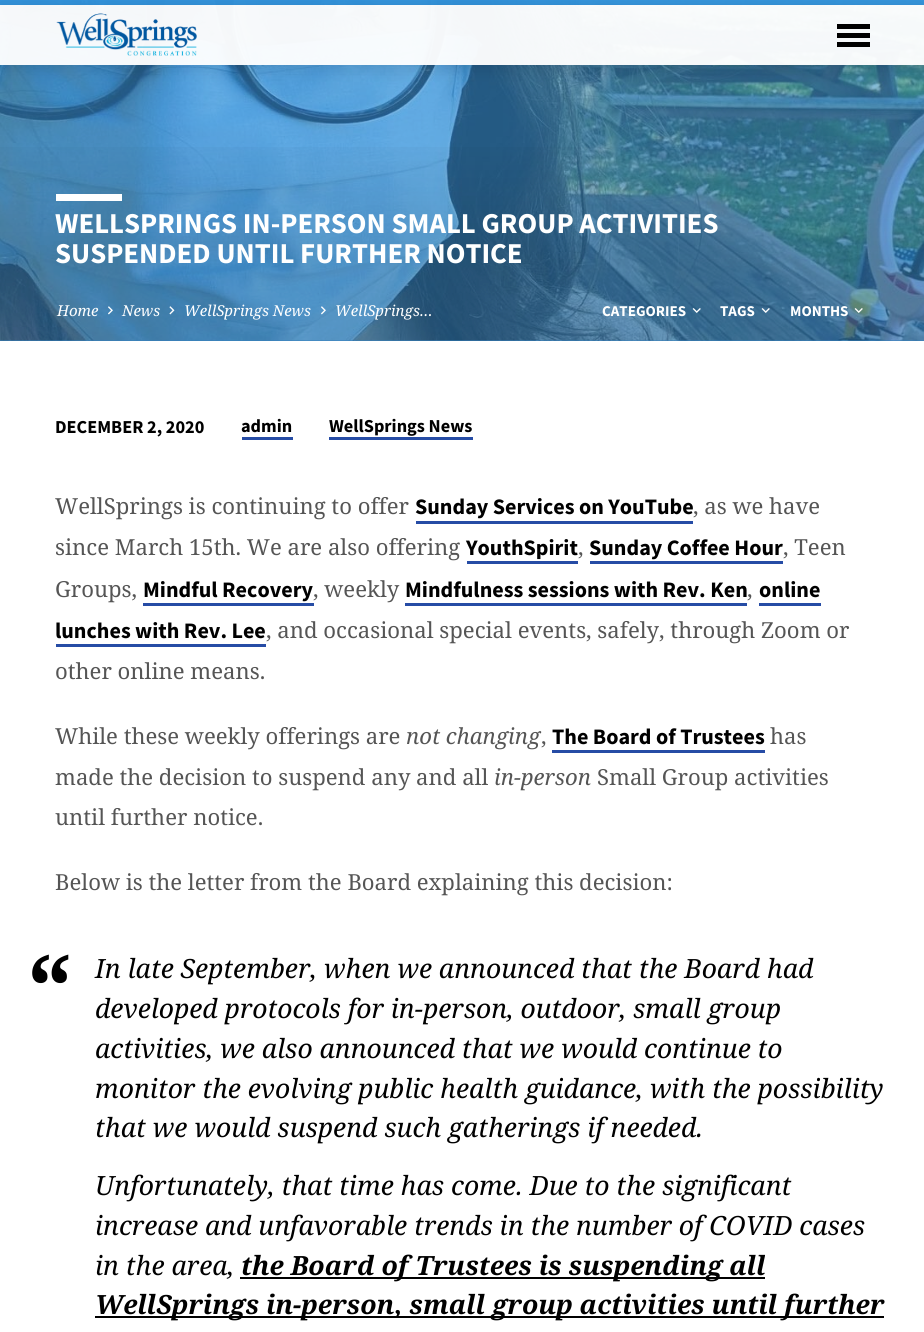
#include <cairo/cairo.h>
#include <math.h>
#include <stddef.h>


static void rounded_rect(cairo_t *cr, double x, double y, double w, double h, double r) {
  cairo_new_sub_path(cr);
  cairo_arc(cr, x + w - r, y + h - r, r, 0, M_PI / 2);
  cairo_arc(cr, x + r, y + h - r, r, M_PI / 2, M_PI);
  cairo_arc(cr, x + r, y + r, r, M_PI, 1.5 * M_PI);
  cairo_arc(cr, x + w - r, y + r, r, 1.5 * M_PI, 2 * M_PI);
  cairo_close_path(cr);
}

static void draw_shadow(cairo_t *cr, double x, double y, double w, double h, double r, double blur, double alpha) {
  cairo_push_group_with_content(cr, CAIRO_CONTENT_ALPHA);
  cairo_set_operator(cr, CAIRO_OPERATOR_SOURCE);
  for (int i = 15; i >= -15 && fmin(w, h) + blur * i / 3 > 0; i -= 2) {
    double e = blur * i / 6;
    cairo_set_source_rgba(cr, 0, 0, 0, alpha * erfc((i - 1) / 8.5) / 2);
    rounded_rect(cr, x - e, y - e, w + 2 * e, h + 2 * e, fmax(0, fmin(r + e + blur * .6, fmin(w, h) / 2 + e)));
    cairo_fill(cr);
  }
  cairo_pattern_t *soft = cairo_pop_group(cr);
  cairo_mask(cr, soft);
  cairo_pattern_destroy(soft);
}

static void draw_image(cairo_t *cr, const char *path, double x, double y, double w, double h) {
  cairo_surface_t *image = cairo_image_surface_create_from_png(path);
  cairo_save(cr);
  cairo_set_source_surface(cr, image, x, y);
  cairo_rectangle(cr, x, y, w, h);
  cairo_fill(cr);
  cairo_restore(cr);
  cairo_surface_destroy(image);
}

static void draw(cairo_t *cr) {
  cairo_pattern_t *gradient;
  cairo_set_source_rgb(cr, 1, 1, 1);
  cairo_paint(cr);
  cairo_set_source_rgb(cr, 59 / 255.0, 148 / 255.0, 217 / 255.0);
  cairo_rectangle(cr, 0, 0, 924, 341);
  cairo_fill(cr);
  draw_image(cr, "images/2.png", 0, 0, 924, 341);
  cairo_set_source_rgba(cr, 51 / 255.0, 149 / 255.0, 224 / 255.0, 0.95);
  cairo_rectangle(cr, 0, 0, 924, 5);
  cairo_fill(cr);
  cairo_set_source_rgba(cr, 1, 1, 1, 0.95);
  cairo_rectangle(cr, 0, 5, 924, 60);
  cairo_fill(cr);
  cairo_save(cr);
  cairo_set_fill_rule(cr, CAIRO_FILL_RULE_EVEN_ODD);
  cairo_new_path(cr);
  cairo_move_to(cr, 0, 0);
  cairo_line_to(cr, 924, 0);
  cairo_line_to(cr, 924, 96);
  cairo_line_to(cr, 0, 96);
  cairo_close_path(cr);
  cairo_move_to(cr, 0, 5);
  cairo_line_to(cr, 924, 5);
  cairo_line_to(cr, 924, 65);
  cairo_line_to(cr, 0, 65);
  cairo_close_path(cr);
  cairo_clip(cr);
  cairo_set_source_rgb(cr, 0, 0, 0);
  draw_shadow(cr, 0, 8, 924, 60, 0, 9, 0.14);
  cairo_restore(cr);
  draw_image(cr, "images/1.png", 56, 13, 141, 43);
  cairo_set_source_rgb(cr, 0, 0, 0);
  cairo_rectangle(cr, 837, 24, 33, 5);
  cairo_fill(cr);
  cairo_rectangle(cr, 837, 33, 33, 5);
  cairo_fill(cr);
  cairo_rectangle(cr, 837, 42, 33, 5);
  cairo_fill(cr);
  gradient = cairo_pattern_create_linear(462, 0, 462, 341);
  cairo_pattern_add_color_stop_rgba(gradient, 0, 0, 0, 0, 0);
  cairo_pattern_add_color_stop_rgba(gradient, 0.36, 0, 0, 0, 0);
  cairo_pattern_add_color_stop_rgba(gradient, 0.76, 0, 0, 0, 0.12);
  cairo_pattern_add_color_stop_rgba(gradient, 1, 0, 0, 0, 0.12);
  cairo_set_source(cr, gradient);
  cairo_pattern_destroy(gradient);
  cairo_rectangle(cr, 0, 147, 924, 194);
  cairo_fill(cr);
  cairo_set_source_rgb(cr, 1, 1, 1);
  cairo_rectangle(cr, 56, 194, 66, 7);
  cairo_fill(cr);
  draw_image(cr, "images/3.png", 108, 306, 5, 9);
  draw_image(cr, "images/4.png", 169, 306, 6, 9);
  draw_image(cr, "images/5.png", 321, 306, 5, 9);
  draw_image(cr, "images/6.png", 692, 308, 9, 5);
  draw_image(cr, "images/7.png", 761, 308, 9, 5);
  draw_image(cr, "images/8.png", 854, 308, 9, 5);
  cairo_set_source_rgb(cr, 38 / 255.0, 76 / 255.0, 165 / 255.0);
  cairo_rectangle(cr, 242, 437, 51, 3);
  cairo_fill(cr);
  cairo_rectangle(cr, 329, 437, 144, 3);
  cairo_fill(cr);
  cairo_rectangle(cr, 416, 521, 277, 3);
  cairo_fill(cr);
  cairo_rectangle(cr, 467, 561, 111, 3);
  cairo_fill(cr);
  cairo_rectangle(cr, 590, 561, 193, 3);
  cairo_fill(cr);
  cairo_rectangle(cr, 143, 603, 171, 3);
  cairo_fill(cr);
  cairo_rectangle(cr, 405, 603, 342, 3);
  cairo_fill(cr);
  cairo_rectangle(cr, 759, 603, 62, 3);
  cairo_fill(cr);
  cairo_rectangle(cr, 56, 644, 210, 3);
  cairo_fill(cr);
  cairo_rectangle(cr, 552, 750, 213, 3);
  cairo_fill(cr);
  cairo_set_source_rgb(cr, 0, 0, 0);
  cairo_rectangle(cr, 240, 1277, 525, 2);
  cairo_fill(cr);
  cairo_rectangle(cr, 95, 1316, 789, 2);
  cairo_fill(cr);
  cairo_select_font_face(cr, "Source Sans Pro", CAIRO_FONT_SLANT_NORMAL, CAIRO_FONT_WEIGHT_BOLD);
  cairo_set_font_size(cr, 28.8);
  cairo_set_source_rgb(cr, 1, 1, 1);
  cairo_move_to(cr, 55, 233);
  cairo_show_text(cr, "WELLSPRINGS IN-PERSON SMALL GROUP ACTIVITIES");
  cairo_move_to(cr, 55, 263);
  cairo_show_text(cr, "SUSPENDED UNTIL FURTHER NOTICE");
  cairo_select_font_face(cr, "Noto Serif", CAIRO_FONT_SLANT_ITALIC, CAIRO_FONT_WEIGHT_NORMAL);
  cairo_set_font_size(cr, 15);
  cairo_move_to(cr, 57, 316);
  cairo_show_text(cr, "Home");
  cairo_move_to(cr, 122, 316);
  cairo_show_text(cr, "News");
  cairo_move_to(cr, 184, 316);
  cairo_show_text(cr, "WellSprings News");
  cairo_move_to(cr, 335, 316);
  cairo_show_text(cr, "WellSprings…");
  cairo_select_font_face(cr, "Source Sans Pro", CAIRO_FONT_SLANT_NORMAL, CAIRO_FONT_WEIGHT_BOLD);
  cairo_move_to(cr, 602, 316);
  cairo_show_text(cr, "CATEGORIES");
  cairo_move_to(cr, 720, 316);
  cairo_show_text(cr, "TAGS");
  cairo_move_to(cr, 790, 316);
  cairo_show_text(cr, "MONTHS");
  cairo_set_font_size(cr, 18.25);
  cairo_set_source_rgb(cr, 0, 0, 0);
  cairo_move_to(cr, 55, 433);
  cairo_show_text(cr, "DECEMBER 2, 2020");
  cairo_move_to(cr, 241, 432);
  cairo_show_text(cr, "admin");
  cairo_move_to(cr, 329, 432);
  cairo_show_text(cr, "WellSprings News");
  cairo_select_font_face(cr, "Noto Serif", CAIRO_FONT_SLANT_NORMAL, CAIRO_FONT_WEIGHT_NORMAL);
  cairo_set_font_size(cr, 22.1);
  cairo_set_source_rgb(cr, 85 / 255.0, 85 / 255.0, 85 / 255.0);
  cairo_move_to(cr, 55, 514);
  cairo_show_text(cr, "WellSprings is continuing to offer");
  cairo_select_font_face(cr, "Source Sans Pro", CAIRO_FONT_SLANT_NORMAL, CAIRO_FONT_WEIGHT_BOLD);
  cairo_set_source_rgb(cr, 0, 0, 0);
  cairo_move_to(cr, 415, 514);
  cairo_show_text(cr, "Sunday Services on YouTube");
  cairo_select_font_face(cr, "Noto Serif", CAIRO_FONT_SLANT_NORMAL, CAIRO_FONT_WEIGHT_NORMAL);
  cairo_set_source_rgb(cr, 85 / 255.0, 85 / 255.0, 85 / 255.0);
  cairo_move_to(cr, 693, 514);
  cairo_show_text(cr, ", as we have");
  cairo_move_to(cr, 55, 555);
  cairo_show_text(cr, "since March 15th. We are also offering");
  cairo_select_font_face(cr, "Source Sans Pro", CAIRO_FONT_SLANT_NORMAL, CAIRO_FONT_WEIGHT_BOLD);
  cairo_set_source_rgb(cr, 0, 0, 0);
  cairo_move_to(cr, 466, 555);
  cairo_show_text(cr, "YouthSpirit");
  cairo_select_font_face(cr, "Noto Serif", CAIRO_FONT_SLANT_NORMAL, CAIRO_FONT_WEIGHT_NORMAL);
  cairo_set_source_rgb(cr, 85 / 255.0, 85 / 255.0, 85 / 255.0);
  cairo_move_to(cr, 578, 555);
  cairo_show_text(cr, ",");
  cairo_select_font_face(cr, "Source Sans Pro", CAIRO_FONT_SLANT_NORMAL, CAIRO_FONT_WEIGHT_BOLD);
  cairo_set_source_rgb(cr, 0, 0, 0);
  cairo_move_to(cr, 589, 555);
  cairo_show_text(cr, "Sunday Coffee Hour");
  cairo_select_font_face(cr, "Noto Serif", CAIRO_FONT_SLANT_NORMAL, CAIRO_FONT_WEIGHT_NORMAL);
  cairo_set_source_rgb(cr, 85 / 255.0, 85 / 255.0, 85 / 255.0);
  cairo_move_to(cr, 783, 555);
  cairo_show_text(cr, ", Teen");
  cairo_move_to(cr, 55, 597);
  cairo_show_text(cr, "Groups,");
  cairo_select_font_face(cr, "Source Sans Pro", CAIRO_FONT_SLANT_NORMAL, CAIRO_FONT_WEIGHT_BOLD);
  cairo_set_source_rgb(cr, 0, 0, 0);
  cairo_move_to(cr, 143, 597);
  cairo_show_text(cr, "Mindful Recovery");
  cairo_select_font_face(cr, "Noto Serif", CAIRO_FONT_SLANT_NORMAL, CAIRO_FONT_WEIGHT_NORMAL);
  cairo_set_source_rgb(cr, 85 / 255.0, 85 / 255.0, 85 / 255.0);
  cairo_move_to(cr, 313, 597);
  cairo_show_text(cr, ", weekly");
  cairo_select_font_face(cr, "Source Sans Pro", CAIRO_FONT_SLANT_NORMAL, CAIRO_FONT_WEIGHT_BOLD);
  cairo_set_source_rgb(cr, 0, 0, 0);
  cairo_move_to(cr, 405, 597);
  cairo_show_text(cr, "Mindfulness sessions with Rev. Ken");
  cairo_select_font_face(cr, "Noto Serif", CAIRO_FONT_SLANT_NORMAL, CAIRO_FONT_WEIGHT_NORMAL);
  cairo_set_source_rgb(cr, 85 / 255.0, 85 / 255.0, 85 / 255.0);
  cairo_move_to(cr, 747, 597);
  cairo_show_text(cr, ",");
  cairo_select_font_face(cr, "Source Sans Pro", CAIRO_FONT_SLANT_NORMAL, CAIRO_FONT_WEIGHT_BOLD);
  cairo_set_source_rgb(cr, 0, 0, 0);
  cairo_move_to(cr, 759, 597);
  cairo_show_text(cr, "online");
  cairo_move_to(cr, 55, 638);
  cairo_show_text(cr, "lunches with Rev. Lee");
  cairo_select_font_face(cr, "Noto Serif", CAIRO_FONT_SLANT_NORMAL, CAIRO_FONT_WEIGHT_NORMAL);
  cairo_set_source_rgb(cr, 85 / 255.0, 85 / 255.0, 85 / 255.0);
  cairo_move_to(cr, 266, 638);
  cairo_show_text(cr, ", and occasional special events, safely, through Zoom or");
  cairo_move_to(cr, 55, 679);
  cairo_show_text(cr, "other online means.");
  cairo_move_to(cr, 55, 744);
  cairo_show_text(cr, "While these weekly offerings are");
  cairo_select_font_face(cr, "Noto Serif", CAIRO_FONT_SLANT_ITALIC, CAIRO_FONT_WEIGHT_NORMAL);
  cairo_move_to(cr, 406, 744);
  cairo_show_text(cr, "not changing");
  cairo_select_font_face(cr, "Noto Serif", CAIRO_FONT_SLANT_NORMAL, CAIRO_FONT_WEIGHT_NORMAL);
  cairo_move_to(cr, 541, 744);
  cairo_show_text(cr, ",");
  cairo_select_font_face(cr, "Source Sans Pro", CAIRO_FONT_SLANT_NORMAL, CAIRO_FONT_WEIGHT_BOLD);
  cairo_set_source_rgb(cr, 0, 0, 0);
  cairo_move_to(cr, 552, 744);
  cairo_show_text(cr, "The Board of Trustees");
  cairo_select_font_face(cr, "Noto Serif", CAIRO_FONT_SLANT_NORMAL, CAIRO_FONT_WEIGHT_NORMAL);
  cairo_set_source_rgb(cr, 85 / 255.0, 85 / 255.0, 85 / 255.0);
  cairo_move_to(cr, 770, 744);
  cairo_show_text(cr, "has");
  cairo_move_to(cr, 55, 785);
  cairo_show_text(cr, "made the decision to suspend any and all");
  cairo_select_font_face(cr, "Noto Serif", CAIRO_FONT_SLANT_ITALIC, CAIRO_FONT_WEIGHT_NORMAL);
  cairo_move_to(cr, 494, 785);
  cairo_show_text(cr, "in-person");
  cairo_select_font_face(cr, "Noto Serif", CAIRO_FONT_SLANT_NORMAL, CAIRO_FONT_WEIGHT_NORMAL);
  cairo_move_to(cr, 597, 785);
  cairo_show_text(cr, "Small Group activities");
  cairo_move_to(cr, 55, 825);
  cairo_show_text(cr, "until further notice.");
  cairo_move_to(cr, 55, 890);
  cairo_show_text(cr, "Below is the letter from the Board explaining this decision:");
  cairo_select_font_face(cr, "Noto Serif", CAIRO_FONT_SLANT_NORMAL, CAIRO_FONT_WEIGHT_BOLD);
  cairo_set_font_size(cr, 93);
  cairo_set_source_rgb(cr, 0, 0, 0);
  cairo_move_to(cr, 27, 1021);
  cairo_show_text(cr, "“");
  cairo_select_font_face(cr, "Noto Serif", CAIRO_FONT_SLANT_ITALIC, CAIRO_FONT_WEIGHT_NORMAL);
  cairo_set_font_size(cr, 26.5);
  cairo_move_to(cr, 95, 978);
  cairo_show_text(cr, "In late September, when we announced that the Board had");
  cairo_move_to(cr, 95, 1018);
  cairo_show_text(cr, "developed protocols for in-person, outdoor, small group");
  cairo_move_to(cr, 95, 1058);
  cairo_show_text(cr, "activities, we also announced that we would continue to");
  cairo_move_to(cr, 95, 1098);
  cairo_show_text(cr, "monitor the evolving public health guidance, with the possibility");
  cairo_move_to(cr, 95, 1137);
  cairo_show_text(cr, "that we would suspend such gatherings if needed.");
  cairo_move_to(cr, 95, 1195);
  cairo_show_text(cr, "Unfortunately, that time has come. Due to the significant");
  cairo_move_to(cr, 95, 1235);
  cairo_show_text(cr, "increase and unfavorable trends in the number of COVID cases");
  cairo_move_to(cr, 95, 1275);
  cairo_show_text(cr, "in the area,");
  cairo_select_font_face(cr, "Noto Serif", CAIRO_FONT_SLANT_ITALIC, CAIRO_FONT_WEIGHT_BOLD);
  cairo_move_to(cr, 241, 1275);
  cairo_show_text(cr, "the Board of Trustees is suspending all");
  cairo_move_to(cr, 95, 1314);
  cairo_show_text(cr, "WellSprings in-person, small group activities until further");
}

int main(void) {
  cairo_surface_t *surface = cairo_image_surface_create(CAIRO_FORMAT_RGB24, 924, 1332);
  cairo_t *cr = cairo_create(surface);
  cairo_font_options_t *options = cairo_font_options_create();
  cairo_font_options_set_hint_metrics(options, CAIRO_HINT_METRICS_OFF);
  cairo_font_options_set_hint_style(options, CAIRO_HINT_STYLE_NONE);
  cairo_set_font_options(cr, options);
  cairo_set_miter_limit(cr, 4);
  draw(cr);
  cairo_surface_write_to_png(surface, "out.png");
  cairo_font_options_destroy(options);
  cairo_destroy(cr);
  cairo_surface_destroy(surface);
  return 0;
}
